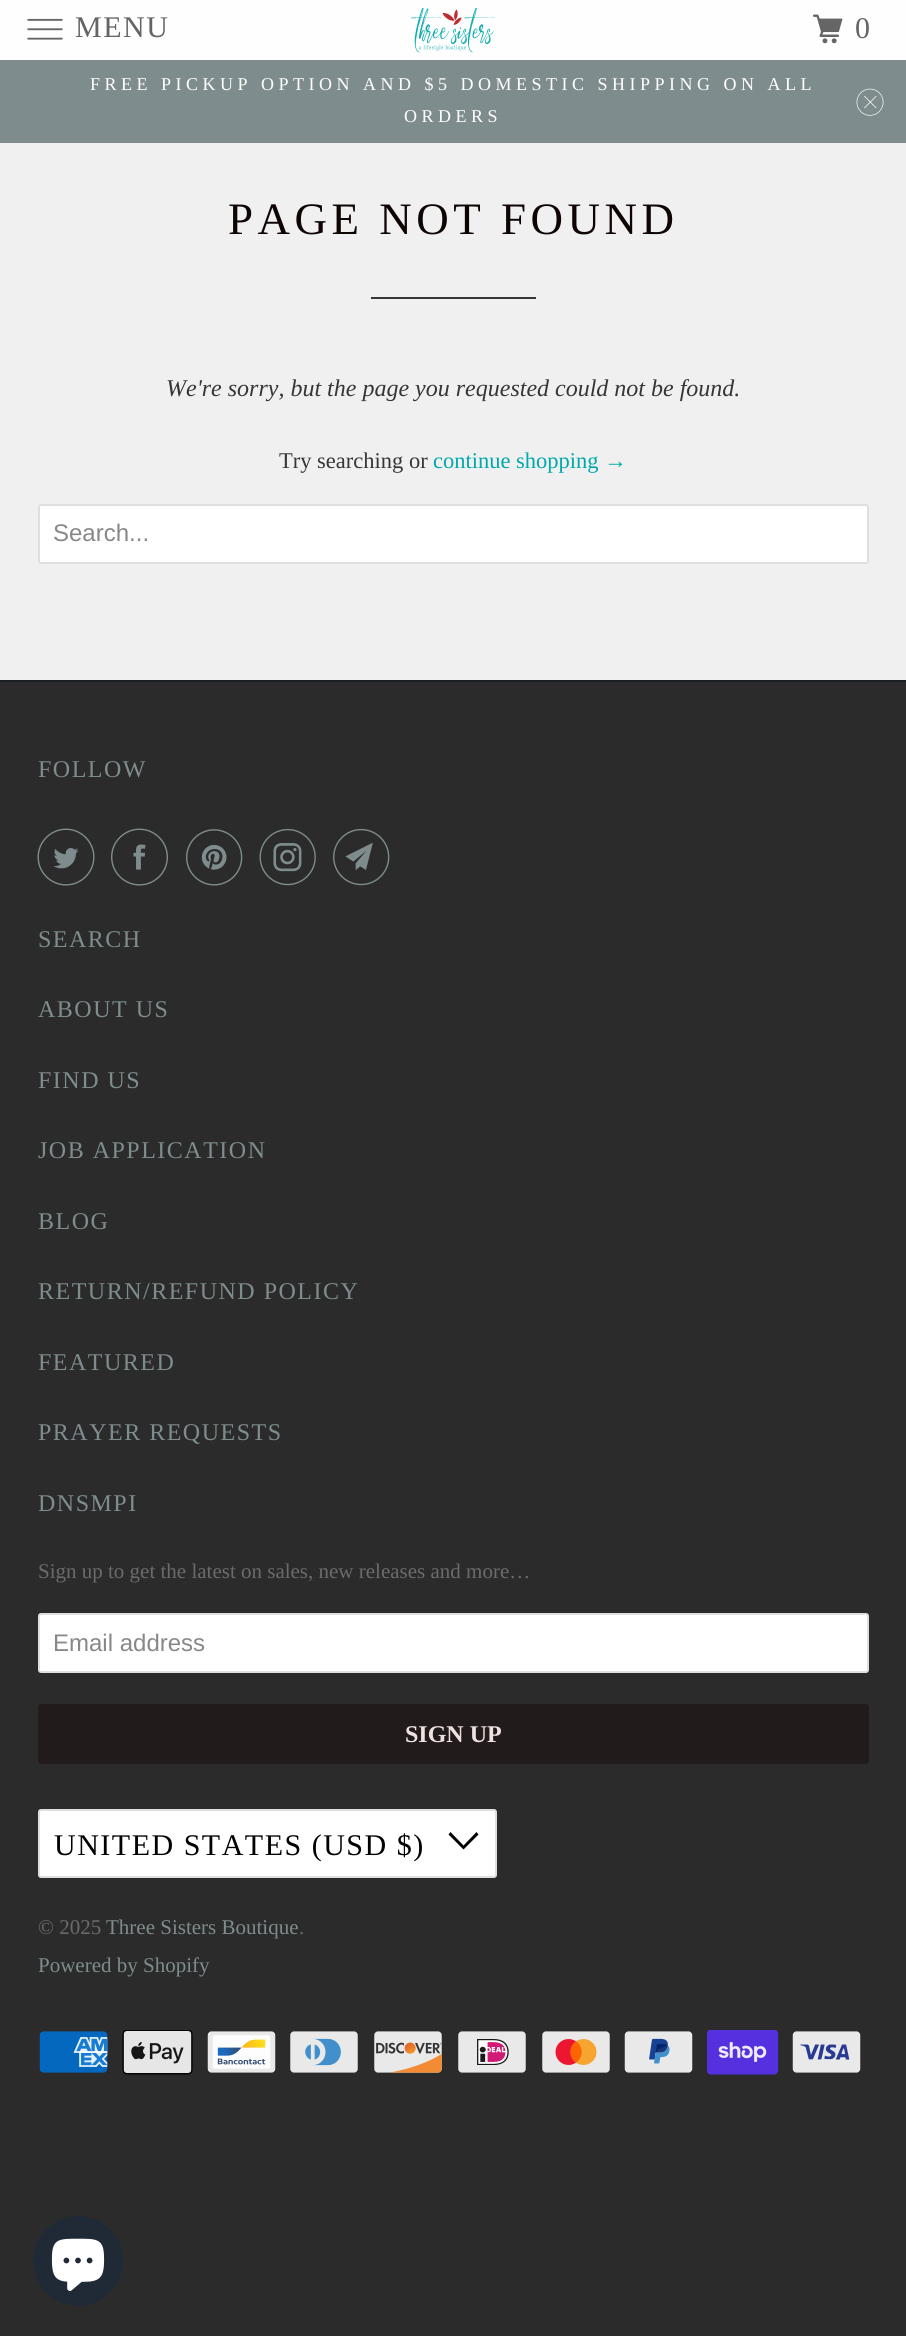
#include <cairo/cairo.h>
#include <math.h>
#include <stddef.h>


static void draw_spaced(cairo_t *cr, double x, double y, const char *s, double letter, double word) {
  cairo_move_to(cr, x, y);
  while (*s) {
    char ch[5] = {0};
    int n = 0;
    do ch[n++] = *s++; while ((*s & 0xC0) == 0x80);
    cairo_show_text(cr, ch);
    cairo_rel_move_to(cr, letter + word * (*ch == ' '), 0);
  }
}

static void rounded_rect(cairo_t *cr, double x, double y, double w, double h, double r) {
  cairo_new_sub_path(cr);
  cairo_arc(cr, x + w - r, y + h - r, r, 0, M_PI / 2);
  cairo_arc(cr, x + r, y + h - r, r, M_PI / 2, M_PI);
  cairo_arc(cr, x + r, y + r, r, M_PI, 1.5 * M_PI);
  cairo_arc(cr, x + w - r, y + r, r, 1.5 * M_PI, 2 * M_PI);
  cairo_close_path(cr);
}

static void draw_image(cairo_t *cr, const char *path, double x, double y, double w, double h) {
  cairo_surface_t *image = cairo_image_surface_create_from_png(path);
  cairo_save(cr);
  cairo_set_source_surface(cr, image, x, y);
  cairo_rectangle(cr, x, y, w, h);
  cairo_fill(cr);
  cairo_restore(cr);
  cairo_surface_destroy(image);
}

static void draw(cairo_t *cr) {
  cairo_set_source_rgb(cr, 43 / 255.0, 43 / 255.0, 43 / 255.0);
  cairo_paint(cr);
  cairo_set_source_rgb(cr, 254 / 255.0, 254 / 255.0, 254 / 255.0);
  cairo_rectangle(cr, 0, 0, 906, 59);
  cairo_fill(cr);
  cairo_set_source_rgb(cr, 250 / 255.0, 254 / 255.0, 254 / 255.0);
  cairo_rectangle(cr, 0, 59, 906, 1);
  cairo_fill(cr);
  draw_image(cr, "images/1.png", 27, 18, 36, 22);
  draw_image(cr, "images/2.png", 411, 8, 84, 45);
  draw_image(cr, "images/3.png", 813, 14, 30, 30);
  cairo_set_source_rgb(cr, 240 / 255.0, 240 / 255.0, 240 / 255.0);
  cairo_rectangle(cr, 0, 143, 906, 537);
  cairo_fill(cr);
  cairo_set_source_rgb(cr, 127 / 255.0, 140 / 255.0, 141 / 255.0);
  cairo_rectangle(cr, 0, 60, 906, 83);
  cairo_fill(cr);
  draw_image(cr, "images/4.png", 856, 88, 28, 28);
  cairo_set_source_rgb(cr, 54 / 255.0, 54 / 255.0, 54 / 255.0);
  cairo_rectangle(cr, 371, 297, 165, 2);
  cairo_fill(cr);
  cairo_set_source_rgb(cr, 1, 1, 1);
  rounded_rect(cr, 39, 505, 829, 58, 2);
  cairo_fill_preserve(cr);
  cairo_set_source_rgb(cr, 223 / 255.0, 223 / 255.0, 223 / 255.0);
  cairo_stroke(cr);
  cairo_set_source_rgb(cr, 27 / 255.0, 31 / 255.0, 35 / 255.0);
  cairo_rectangle(cr, 0, 680, 906, 2);
  cairo_fill(cr);
  draw_image(cr, "images/5.png", 37, 828, 58, 58);
  draw_image(cr, "images/6.png", 111, 828, 57, 58);
  draw_image(cr, "images/7.png", 186, 829, 57, 57);
  draw_image(cr, "images/8.png", 259, 828, 57, 58);
  draw_image(cr, "images/9.png", 333, 828, 57, 58);
  cairo_set_source_rgb(cr, 1, 1, 1);
  rounded_rect(cr, 39, 1614, 829, 58, 2);
  cairo_fill_preserve(cr);
  cairo_set_source_rgb(cr, 223 / 255.0, 223 / 255.0, 223 / 255.0);
  cairo_stroke(cr);
  cairo_set_source_rgb(cr, 33 / 255.0, 27 / 255.0, 27 / 255.0);
  rounded_rect(cr, 38, 1704, 831, 60, 3);
  cairo_fill(cr);
  cairo_set_source_rgb(cr, 1, 1, 1);
  rounded_rect(cr, 39, 1810, 457, 67, 2);
  cairo_fill_preserve(cr);
  cairo_set_source_rgb(cr, 223 / 255.0, 223 / 255.0, 223 / 255.0);
  cairo_stroke(cr);
  cairo_set_source_rgb(cr, 0, 0, 0);
  cairo_new_path(cr);
  cairo_move_to(cr, 456, 1842);
  cairo_line_to(cr, 448.5, 1834.5);
  cairo_line_to(cr, 450.5, 1832);
  cairo_line_to(cr, 463.5, 1845.5);
  cairo_line_to(cr, 476.5, 1832);
  cairo_line_to(cr, 478.5, 1834.5);
  cairo_line_to(cr, 463.5, 1849.5);
  cairo_close_path(cr);
  cairo_fill(cr);
  draw_image(cr, "images/10.png", 39, 2031, 69, 42);
  draw_image(cr, "images/11.png", 122, 2030, 71, 45);
  draw_image(cr, "images/12.png", 207, 2031, 69, 42);
  draw_image(cr, "images/13.png", 290, 2031, 68, 42);
  draw_image(cr, "images/14.png", 374, 2031, 68, 42);
  draw_image(cr, "images/15.png", 458, 2031, 68, 42);
  draw_image(cr, "images/16.png", 542, 2031, 68, 42);
  draw_image(cr, "images/17.png", 624, 2031, 69, 42);
  draw_image(cr, "images/18.png", 707, 2030, 72, 45);
  draw_image(cr, "images/19.png", 792, 2031, 69, 42);
  cairo_set_source_rgb(cr, 32 / 255.0, 42 / 255.0, 54 / 255.0);
  cairo_arc(cr, 78, 2261, 45, 0, 2 * M_PI);
  cairo_fill(cr);
  draw_image(cr, "images/20.png", 51, 2238, 54, 53);
  cairo_select_font_face(cr, "Liberation Serif", CAIRO_FONT_SLANT_NORMAL, CAIRO_FONT_WEIGHT_NORMAL);
  cairo_set_font_size(cr, 30);
  cairo_set_source_rgb(cr, 100 / 255.0, 100 / 255.0, 100 / 255.0);
  draw_spaced(cr, 75, 37, "MENU", 1.5, 0);
  draw_spaced(cr, 855, 38, "0", 1.5, 0);
  cairo_set_font_size(cr, 18);
  cairo_set_source_rgb(cr, 1, 1, 1);
  draw_spaced(cr, 90, 90, "FREE PICKUP OPTION AND $5 DOMESTIC SHIPPING ON ALL", 4.5, 0);
  draw_spaced(cr, 404, 122, "ORDERS", 4.5, 0);
  cairo_set_font_size(cr, 45);
  cairo_set_source_rgb(cr, 15 / 255.0, 4 / 255.0, 4 / 255.0);
  draw_spaced(cr, 228, 234, "PAGE NOT FOUND", 4.5, 0);
  cairo_select_font_face(cr, "Liberation Serif", CAIRO_FONT_SLANT_ITALIC, CAIRO_FONT_WEIGHT_NORMAL);
  cairo_set_font_size(cr, 24);
  cairo_set_source_rgb(cr, 54 / 255.0, 54 / 255.0, 54 / 255.0);
  cairo_move_to(cr, 166, 396);
  cairo_show_text(cr, "We're sorry, but the page you requested could not be found.");
  cairo_select_font_face(cr, "Liberation Serif", CAIRO_FONT_SLANT_NORMAL, CAIRO_FONT_WEIGHT_NORMAL);
  cairo_set_font_size(cr, 22.5);
  cairo_move_to(cr, 279, 468);
  cairo_show_text(cr, "Try searching or");
  cairo_set_source_rgb(cr, 0, 168 / 255.0, 172 / 255.0);
  cairo_move_to(cr, 433, 468);
  cairo_show_text(cr, "continue shopping →");
  cairo_select_font_face(cr, "Liberation Sans", CAIRO_FONT_SLANT_NORMAL, CAIRO_FONT_WEIGHT_NORMAL);
  cairo_set_font_size(cr, 24);
  cairo_set_source_rgb(cr, 136 / 255.0, 136 / 255.0, 136 / 255.0);
  cairo_move_to(cr, 53, 541);
  cairo_show_text(cr, "Search...");
  cairo_select_font_face(cr, "Liberation Serif", CAIRO_FONT_SLANT_NORMAL, CAIRO_FONT_WEIGHT_NORMAL);
  cairo_set_source_rgb(cr, 127 / 255.0, 140 / 255.0, 141 / 255.0);
  draw_spaced(cr, 38, 777, "FOLLOW", 1.5, 0);
  draw_spaced(cr, 38, 947, "SEARCH", 1.5, 0);
  draw_spaced(cr, 38, 1017, "ABOUT US", 1.5, 0);
  draw_spaced(cr, 38, 1088, "FIND US", 1.5, 0);
  draw_spaced(cr, 38, 1158, "JOB APPLICATION", 1.5, 0);
  draw_spaced(cr, 38, 1229, "BLOG", 1.5, 0);
  draw_spaced(cr, 38, 1299, "RETURN/REFUND POLICY", 1.5, 0);
  draw_spaced(cr, 38, 1370, "FEATURED", 1.5, 0);
  draw_spaced(cr, 38, 1440, "PRAYER REQUESTS", 1.5, 0);
  draw_spaced(cr, 38, 1511, "DNSMPI", 1.5, 0);
  cairo_set_font_size(cr, 21);
  cairo_set_source_rgb(cr, 107 / 255.0, 107 / 255.0, 107 / 255.0);
  cairo_move_to(cr, 38, 1578);
  cairo_show_text(cr, "Sign up to get the latest on sales, new releases and more…");
  cairo_select_font_face(cr, "Liberation Sans", CAIRO_FONT_SLANT_NORMAL, CAIRO_FONT_WEIGHT_NORMAL);
  cairo_set_font_size(cr, 24);
  cairo_set_source_rgb(cr, 136 / 255.0, 136 / 255.0, 136 / 255.0);
  cairo_move_to(cr, 53, 1651);
  cairo_show_text(cr, "Email address");
  cairo_select_font_face(cr, "Liberation Serif", CAIRO_FONT_SLANT_NORMAL, CAIRO_FONT_WEIGHT_BOLD);
  cairo_set_source_rgb(cr, 240 / 255.0, 225 / 255.0, 225 / 255.0);
  cairo_move_to(cr, 405, 1742);
  cairo_show_text(cr, "SIGN UP");
  cairo_select_font_face(cr, "Liberation Serif", CAIRO_FONT_SLANT_NORMAL, CAIRO_FONT_WEIGHT_NORMAL);
  cairo_set_font_size(cr, 30);
  cairo_set_source_rgb(cr, 0, 0, 0);
  draw_spaced(cr, 54, 1855, "UNITED STATES (USD $)", 1.5, 0);
  cairo_set_font_size(cr, 21);
  cairo_set_source_rgb(cr, 107 / 255.0, 107 / 255.0, 107 / 255.0);
  cairo_move_to(cr, 38, 1934);
  cairo_show_text(cr, "© 2025");
  cairo_set_source_rgb(cr, 127 / 255.0, 140 / 255.0, 141 / 255.0);
  cairo_move_to(cr, 106, 1934);
  cairo_show_text(cr, "Three Sisters Boutique");
  cairo_set_source_rgb(cr, 107 / 255.0, 107 / 255.0, 107 / 255.0);
  cairo_move_to(cr, 299, 1934);
  cairo_show_text(cr, ".");
  cairo_set_source_rgb(cr, 127 / 255.0, 140 / 255.0, 141 / 255.0);
  cairo_move_to(cr, 38, 1972);
  cairo_show_text(cr, "Powered by Shopify");
}

int main(void) {
  cairo_surface_t *surface = cairo_image_surface_create(CAIRO_FORMAT_RGB24, 906, 2336);
  cairo_t *cr = cairo_create(surface);
  cairo_font_options_t *options = cairo_font_options_create();
  cairo_font_options_set_hint_metrics(options, CAIRO_HINT_METRICS_OFF);
  cairo_font_options_set_hint_style(options, CAIRO_HINT_STYLE_NONE);
  cairo_set_font_options(cr, options);
  cairo_set_miter_limit(cr, 4);
  draw(cr);
  cairo_surface_write_to_png(surface, "out.png");
  cairo_font_options_destroy(options);
  cairo_destroy(cr);
  cairo_surface_destroy(surface);
  return 0;
}
